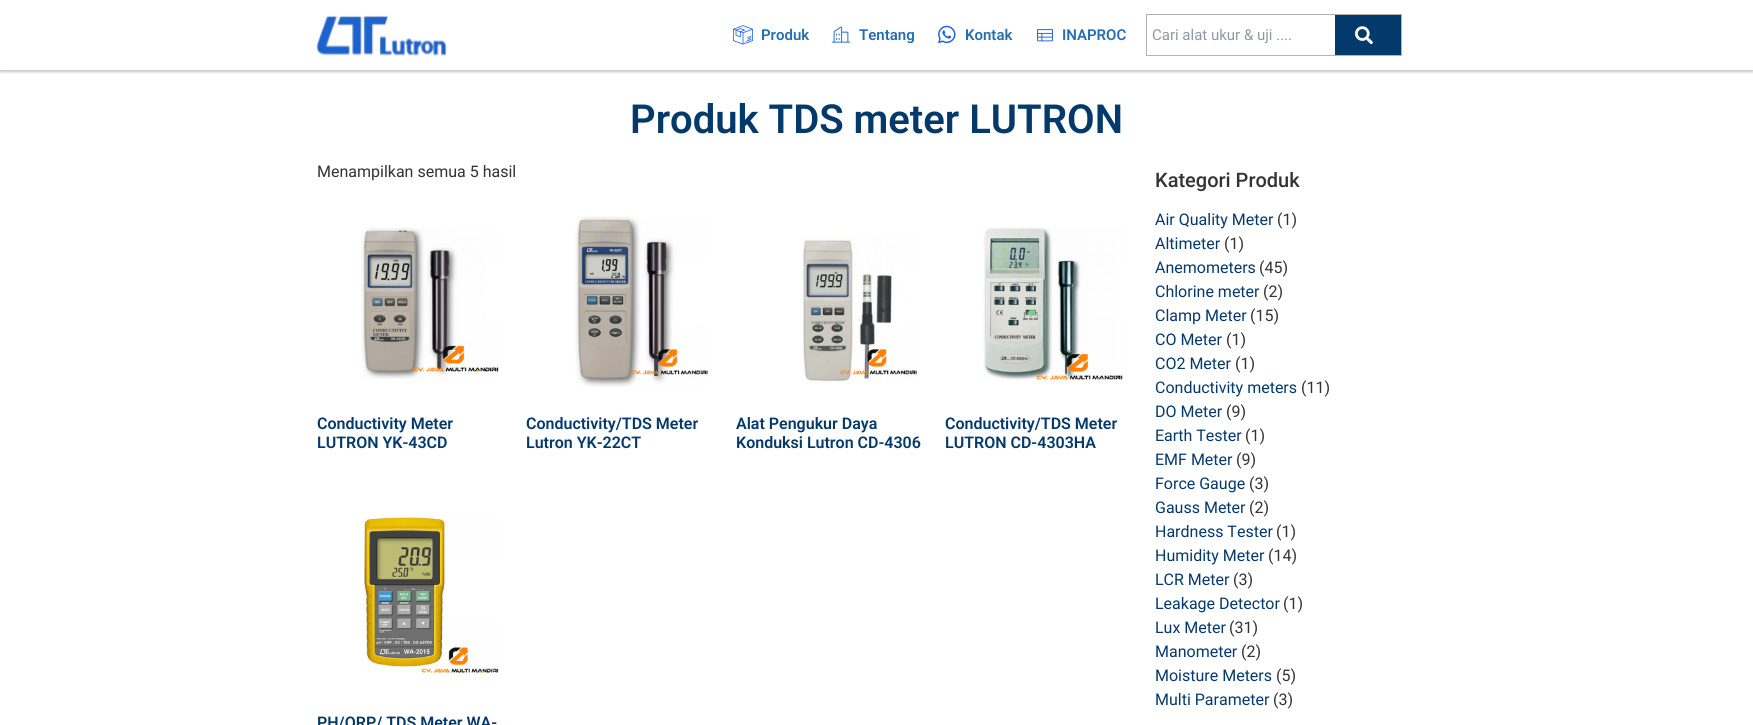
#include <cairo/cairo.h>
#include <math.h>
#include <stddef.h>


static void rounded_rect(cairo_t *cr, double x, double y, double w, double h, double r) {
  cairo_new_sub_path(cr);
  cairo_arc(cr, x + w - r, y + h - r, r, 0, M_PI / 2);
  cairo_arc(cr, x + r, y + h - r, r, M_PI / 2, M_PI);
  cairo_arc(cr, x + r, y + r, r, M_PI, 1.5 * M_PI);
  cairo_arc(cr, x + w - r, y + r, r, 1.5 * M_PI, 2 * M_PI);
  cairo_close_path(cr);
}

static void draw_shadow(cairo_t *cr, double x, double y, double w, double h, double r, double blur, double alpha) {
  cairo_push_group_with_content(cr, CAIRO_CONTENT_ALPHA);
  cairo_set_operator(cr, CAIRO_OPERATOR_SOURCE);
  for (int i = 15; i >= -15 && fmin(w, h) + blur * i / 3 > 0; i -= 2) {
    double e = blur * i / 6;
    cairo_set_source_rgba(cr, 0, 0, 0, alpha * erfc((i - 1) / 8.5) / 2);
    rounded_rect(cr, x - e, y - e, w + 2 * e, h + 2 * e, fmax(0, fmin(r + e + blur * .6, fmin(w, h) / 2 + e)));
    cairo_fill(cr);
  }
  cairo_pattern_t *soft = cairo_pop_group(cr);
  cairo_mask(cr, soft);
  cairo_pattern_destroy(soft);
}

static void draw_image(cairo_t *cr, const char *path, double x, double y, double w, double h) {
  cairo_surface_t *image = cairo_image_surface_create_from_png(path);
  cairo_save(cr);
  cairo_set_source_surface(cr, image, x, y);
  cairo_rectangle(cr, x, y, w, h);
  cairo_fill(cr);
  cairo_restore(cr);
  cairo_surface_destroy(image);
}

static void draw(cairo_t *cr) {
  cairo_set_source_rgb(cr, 1, 1, 1);
  cairo_paint(cr);
  cairo_save(cr);
  cairo_rectangle(cr, 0, 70, 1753, 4);
  cairo_clip(cr);
  cairo_set_source_rgb(cr, 0, 0, 0);
  draw_shadow(cr, 0, 0, 1753, 70, 0, 2.5, 0.5);
  cairo_restore(cr);
  draw_image(cr, "images/1.png", 316, 15, 131, 41);
  draw_image(cr, "images/2.png", 733, 25, 20, 20);
  draw_image(cr, "images/3.png", 831, 26, 20, 17);
  draw_image(cr, "images/4.png", 938, 25, 18, 19);
  draw_image(cr, "images/5.png", 1037, 29, 16, 13);
  cairo_rectangle(cr, 1146.5, 14.5, 255, 41);
  cairo_set_source_rgb(cr, 179 / 255.0, 179 / 255.0, 179 / 255.0);
  cairo_set_line_width(cr, 1);
  cairo_stroke(cr);
  cairo_set_source_rgb(cr, 4 / 255.0, 57 / 255.0, 107 / 255.0);
  cairo_rectangle(cr, 1335, 15, 66, 40);
  cairo_fill(cr);
  draw_image(cr, "images/6.png", 1355, 26, 18, 19);
  draw_image(cr, "images/7.png", 361, 227, 138, 152);
  draw_image(cr, "images/8.png", 575, 216, 133, 171);
  draw_image(cr, "images/9.png", 800, 237, 117, 147);
  draw_image(cr, "images/10.png", 983, 227, 140, 153);
  draw_image(cr, "images/11.png", 364, 517, 135, 156);
  cairo_select_font_face(cr, "Roboto SemiBold", CAIRO_FONT_SLANT_NORMAL, CAIRO_FONT_WEIGHT_NORMAL);
  cairo_set_font_size(cr, 15);
  cairo_set_source_rgb(cr, 36 / 255.0, 111 / 255.0, 178 / 255.0);
  cairo_move_to(cr, 761, 40);
  cairo_show_text(cr, "Produk");
  cairo_move_to(cr, 859, 40);
  cairo_show_text(cr, "Tentang");
  cairo_move_to(cr, 965, 40);
  cairo_show_text(cr, "Kontak");
  cairo_move_to(cr, 1062, 40);
  cairo_show_text(cr, "INAPROC");
  cairo_select_font_face(cr, "Roboto", CAIRO_FONT_SLANT_NORMAL, CAIRO_FONT_WEIGHT_NORMAL);
  cairo_set_source_rgb(cr, 143 / 255.0, 153 / 255.0, 163 / 255.0);
  cairo_move_to(cr, 1152, 40);
  cairo_show_text(cr, "Cari alat ukur & uji ....");
  cairo_select_font_face(cr, "Roboto SemiBold", CAIRO_FONT_SLANT_NORMAL, CAIRO_FONT_WEIGHT_NORMAL);
  cairo_set_font_size(cr, 40);
  cairo_set_source_rgb(cr, 4 / 255.0, 57 / 255.0, 107 / 255.0);
  cairo_move_to(cr, 630, 133);
  cairo_show_text(cr, "Produk TDS meter LUTRON");
  cairo_select_font_face(cr, "Roboto", CAIRO_FONT_SLANT_NORMAL, CAIRO_FONT_WEIGHT_NORMAL);
  cairo_set_font_size(cr, 16);
  cairo_set_source_rgb(cr, 51 / 255.0, 51 / 255.0, 51 / 255.0);
  cairo_move_to(cr, 317, 177);
  cairo_show_text(cr, "Menampilkan semua 5 hasil");
  cairo_select_font_face(cr, "Roboto SemiBold", CAIRO_FONT_SLANT_NORMAL, CAIRO_FONT_WEIGHT_NORMAL);
  cairo_set_source_rgb(cr, 4 / 255.0, 57 / 255.0, 107 / 255.0);
  cairo_move_to(cr, 317, 429);
  cairo_show_text(cr, "Conductivity Meter");
  cairo_move_to(cr, 317, 448);
  cairo_show_text(cr, "LUTRON YK-43CD");
  cairo_move_to(cr, 526, 429);
  cairo_show_text(cr, "Conductivity/TDS Meter");
  cairo_move_to(cr, 526, 448);
  cairo_show_text(cr, "Lutron YK-22CT");
  cairo_move_to(cr, 736, 429);
  cairo_show_text(cr, "Alat Pengukur Daya");
  cairo_move_to(cr, 736, 448);
  cairo_show_text(cr, "Konduksi Lutron CD-4306");
  cairo_move_to(cr, 945, 429);
  cairo_show_text(cr, "Conductivity/TDS Meter");
  cairo_move_to(cr, 945, 448);
  cairo_show_text(cr, "LUTRON CD-4303HA");
  cairo_move_to(cr, 317, 728);
  cairo_show_text(cr, "PH/ORP/ TDS Meter WA-");
  cairo_select_font_face(cr, "Roboto Medium", CAIRO_FONT_SLANT_NORMAL, CAIRO_FONT_WEIGHT_NORMAL);
  cairo_set_font_size(cr, 20);
  cairo_set_source_rgb(cr, 51 / 255.0, 51 / 255.0, 51 / 255.0);
  cairo_move_to(cr, 1155, 187);
  cairo_show_text(cr, "Kategori Produk");
  cairo_select_font_face(cr, "Roboto", CAIRO_FONT_SLANT_NORMAL, CAIRO_FONT_WEIGHT_NORMAL);
  cairo_set_font_size(cr, 16);
  cairo_set_source_rgb(cr, 4 / 255.0, 57 / 255.0, 107 / 255.0);
  cairo_move_to(cr, 1155, 225);
  cairo_show_text(cr, "Air Quality Meter");
  cairo_set_source_rgb(cr, 51 / 255.0, 51 / 255.0, 51 / 255.0);
  cairo_move_to(cr, 1277, 225);
  cairo_show_text(cr, "(1)");
  cairo_set_source_rgb(cr, 4 / 255.0, 57 / 255.0, 107 / 255.0);
  cairo_move_to(cr, 1155, 249);
  cairo_show_text(cr, "Altimeter");
  cairo_set_source_rgb(cr, 51 / 255.0, 51 / 255.0, 51 / 255.0);
  cairo_move_to(cr, 1224, 249);
  cairo_show_text(cr, "(1)");
  cairo_set_source_rgb(cr, 4 / 255.0, 57 / 255.0, 107 / 255.0);
  cairo_move_to(cr, 1155, 273);
  cairo_show_text(cr, "Anemometers");
  cairo_set_source_rgb(cr, 51 / 255.0, 51 / 255.0, 51 / 255.0);
  cairo_move_to(cr, 1259, 273);
  cairo_show_text(cr, "(45)");
  cairo_set_source_rgb(cr, 4 / 255.0, 57 / 255.0, 107 / 255.0);
  cairo_move_to(cr, 1155, 297);
  cairo_show_text(cr, "Chlorine meter");
  cairo_set_source_rgb(cr, 51 / 255.0, 51 / 255.0, 51 / 255.0);
  cairo_move_to(cr, 1263, 297);
  cairo_show_text(cr, "(2)");
  cairo_set_source_rgb(cr, 4 / 255.0, 57 / 255.0, 107 / 255.0);
  cairo_move_to(cr, 1155, 321);
  cairo_show_text(cr, "Clamp Meter");
  cairo_set_source_rgb(cr, 51 / 255.0, 51 / 255.0, 51 / 255.0);
  cairo_move_to(cr, 1250, 321);
  cairo_show_text(cr, "(15)");
  cairo_set_source_rgb(cr, 4 / 255.0, 57 / 255.0, 107 / 255.0);
  cairo_move_to(cr, 1155, 345);
  cairo_show_text(cr, "CO Meter");
  cairo_set_source_rgb(cr, 51 / 255.0, 51 / 255.0, 51 / 255.0);
  cairo_move_to(cr, 1226, 345);
  cairo_show_text(cr, "(1)");
  cairo_set_source_rgb(cr, 4 / 255.0, 57 / 255.0, 107 / 255.0);
  cairo_move_to(cr, 1155, 369);
  cairo_show_text(cr, "CO2 Meter");
  cairo_set_source_rgb(cr, 51 / 255.0, 51 / 255.0, 51 / 255.0);
  cairo_move_to(cr, 1235, 369);
  cairo_show_text(cr, "(1)");
  cairo_set_source_rgb(cr, 4 / 255.0, 57 / 255.0, 107 / 255.0);
  cairo_move_to(cr, 1155, 393);
  cairo_show_text(cr, "Conductivity meters");
  cairo_set_source_rgb(cr, 51 / 255.0, 51 / 255.0, 51 / 255.0);
  cairo_move_to(cr, 1301, 393);
  cairo_show_text(cr, "(11)");
  cairo_set_source_rgb(cr, 4 / 255.0, 57 / 255.0, 107 / 255.0);
  cairo_move_to(cr, 1155, 417);
  cairo_show_text(cr, "DO Meter");
  cairo_set_source_rgb(cr, 51 / 255.0, 51 / 255.0, 51 / 255.0);
  cairo_move_to(cr, 1226, 417);
  cairo_show_text(cr, "(9)");
  cairo_set_source_rgb(cr, 4 / 255.0, 57 / 255.0, 107 / 255.0);
  cairo_move_to(cr, 1155, 441);
  cairo_show_text(cr, "Earth Tester");
  cairo_set_source_rgb(cr, 51 / 255.0, 51 / 255.0, 51 / 255.0);
  cairo_move_to(cr, 1245, 441);
  cairo_show_text(cr, "(1)");
  cairo_set_source_rgb(cr, 4 / 255.0, 57 / 255.0, 107 / 255.0);
  cairo_move_to(cr, 1155, 465);
  cairo_show_text(cr, "EMF Meter");
  cairo_set_source_rgb(cr, 51 / 255.0, 51 / 255.0, 51 / 255.0);
  cairo_move_to(cr, 1236, 465);
  cairo_show_text(cr, "(9)");
  cairo_set_source_rgb(cr, 4 / 255.0, 57 / 255.0, 107 / 255.0);
  cairo_move_to(cr, 1155, 489);
  cairo_show_text(cr, "Force Gauge");
  cairo_set_source_rgb(cr, 51 / 255.0, 51 / 255.0, 51 / 255.0);
  cairo_move_to(cr, 1249, 489);
  cairo_show_text(cr, "(3)");
  cairo_set_source_rgb(cr, 4 / 255.0, 57 / 255.0, 107 / 255.0);
  cairo_move_to(cr, 1155, 513);
  cairo_show_text(cr, "Gauss Meter");
  cairo_set_source_rgb(cr, 51 / 255.0, 51 / 255.0, 51 / 255.0);
  cairo_move_to(cr, 1249, 513);
  cairo_show_text(cr, "(2)");
  cairo_set_source_rgb(cr, 4 / 255.0, 57 / 255.0, 107 / 255.0);
  cairo_move_to(cr, 1155, 537);
  cairo_show_text(cr, "Hardness Tester");
  cairo_set_source_rgb(cr, 51 / 255.0, 51 / 255.0, 51 / 255.0);
  cairo_move_to(cr, 1276, 537);
  cairo_show_text(cr, "(1)");
  cairo_set_source_rgb(cr, 4 / 255.0, 57 / 255.0, 107 / 255.0);
  cairo_move_to(cr, 1155, 561);
  cairo_show_text(cr, "Humidity Meter");
  cairo_set_source_rgb(cr, 51 / 255.0, 51 / 255.0, 51 / 255.0);
  cairo_move_to(cr, 1268, 561);
  cairo_show_text(cr, "(14)");
  cairo_set_source_rgb(cr, 4 / 255.0, 57 / 255.0, 107 / 255.0);
  cairo_move_to(cr, 1155, 585);
  cairo_show_text(cr, "LCR Meter");
  cairo_set_source_rgb(cr, 51 / 255.0, 51 / 255.0, 51 / 255.0);
  cairo_move_to(cr, 1233, 585);
  cairo_show_text(cr, "(3)");
  cairo_set_source_rgb(cr, 4 / 255.0, 57 / 255.0, 107 / 255.0);
  cairo_move_to(cr, 1155, 609);
  cairo_show_text(cr, "Leakage Detector");
  cairo_set_source_rgb(cr, 51 / 255.0, 51 / 255.0, 51 / 255.0);
  cairo_move_to(cr, 1283, 609);
  cairo_show_text(cr, "(1)");
  cairo_set_source_rgb(cr, 4 / 255.0, 57 / 255.0, 107 / 255.0);
  cairo_move_to(cr, 1155, 633);
  cairo_show_text(cr, "Lux Meter");
  cairo_set_source_rgb(cr, 51 / 255.0, 51 / 255.0, 51 / 255.0);
  cairo_move_to(cr, 1229, 633);
  cairo_show_text(cr, "(31)");
  cairo_set_source_rgb(cr, 4 / 255.0, 57 / 255.0, 107 / 255.0);
  cairo_move_to(cr, 1155, 657);
  cairo_show_text(cr, "Manometer");
  cairo_set_source_rgb(cr, 51 / 255.0, 51 / 255.0, 51 / 255.0);
  cairo_move_to(cr, 1241, 657);
  cairo_show_text(cr, "(2)");
  cairo_set_source_rgb(cr, 4 / 255.0, 57 / 255.0, 107 / 255.0);
  cairo_move_to(cr, 1155, 681);
  cairo_show_text(cr, "Moisture Meters");
  cairo_set_source_rgb(cr, 51 / 255.0, 51 / 255.0, 51 / 255.0);
  cairo_move_to(cr, 1276, 681);
  cairo_show_text(cr, "(5)");
  cairo_set_source_rgb(cr, 4 / 255.0, 57 / 255.0, 107 / 255.0);
  cairo_move_to(cr, 1155, 705);
  cairo_show_text(cr, "Multi Parameter");
  cairo_set_source_rgb(cr, 51 / 255.0, 51 / 255.0, 51 / 255.0);
  cairo_move_to(cr, 1273, 705);
  cairo_show_text(cr, "(3)");
}

int main(void) {
  cairo_surface_t *surface = cairo_image_surface_create(CAIRO_FORMAT_RGB24, 1753, 725);
  cairo_t *cr = cairo_create(surface);
  cairo_font_options_t *options = cairo_font_options_create();
  cairo_font_options_set_hint_metrics(options, CAIRO_HINT_METRICS_OFF);
  cairo_font_options_set_hint_style(options, CAIRO_HINT_STYLE_NONE);
  cairo_set_font_options(cr, options);
  cairo_set_miter_limit(cr, 4);
  draw(cr);
  cairo_surface_write_to_png(surface, "out.png");
  cairo_font_options_destroy(options);
  cairo_destroy(cr);
  cairo_surface_destroy(surface);
  return 0;
}
